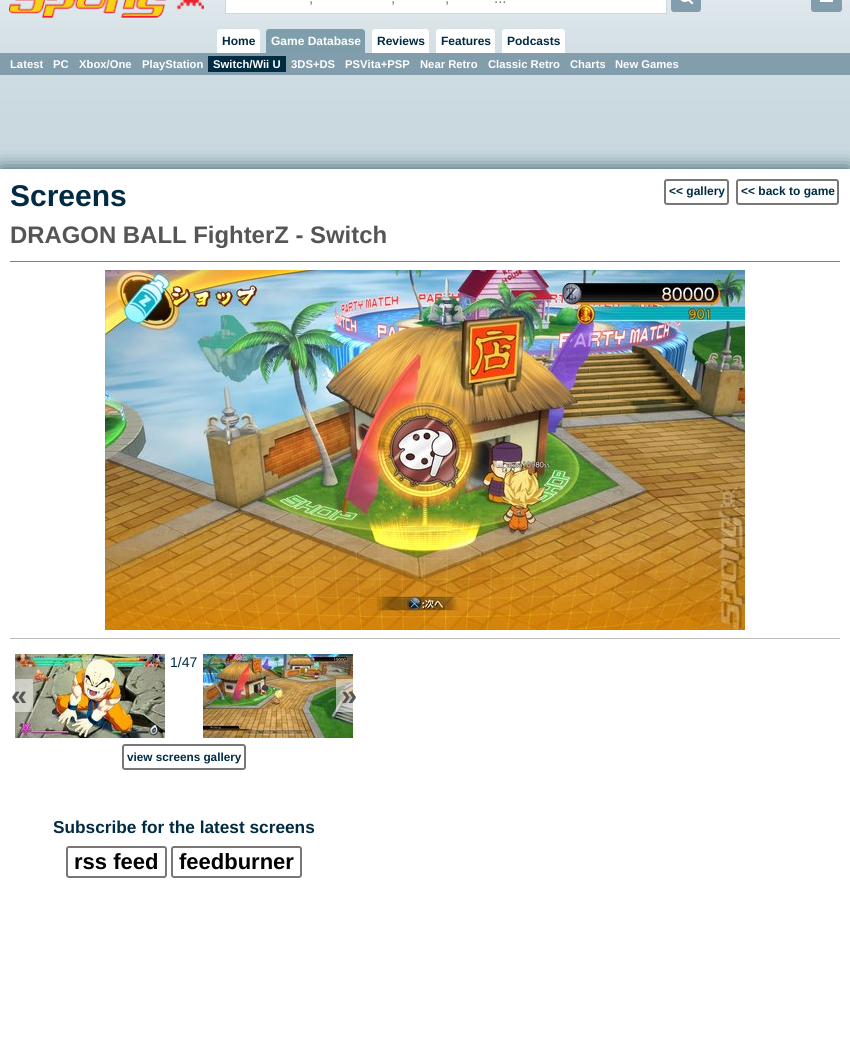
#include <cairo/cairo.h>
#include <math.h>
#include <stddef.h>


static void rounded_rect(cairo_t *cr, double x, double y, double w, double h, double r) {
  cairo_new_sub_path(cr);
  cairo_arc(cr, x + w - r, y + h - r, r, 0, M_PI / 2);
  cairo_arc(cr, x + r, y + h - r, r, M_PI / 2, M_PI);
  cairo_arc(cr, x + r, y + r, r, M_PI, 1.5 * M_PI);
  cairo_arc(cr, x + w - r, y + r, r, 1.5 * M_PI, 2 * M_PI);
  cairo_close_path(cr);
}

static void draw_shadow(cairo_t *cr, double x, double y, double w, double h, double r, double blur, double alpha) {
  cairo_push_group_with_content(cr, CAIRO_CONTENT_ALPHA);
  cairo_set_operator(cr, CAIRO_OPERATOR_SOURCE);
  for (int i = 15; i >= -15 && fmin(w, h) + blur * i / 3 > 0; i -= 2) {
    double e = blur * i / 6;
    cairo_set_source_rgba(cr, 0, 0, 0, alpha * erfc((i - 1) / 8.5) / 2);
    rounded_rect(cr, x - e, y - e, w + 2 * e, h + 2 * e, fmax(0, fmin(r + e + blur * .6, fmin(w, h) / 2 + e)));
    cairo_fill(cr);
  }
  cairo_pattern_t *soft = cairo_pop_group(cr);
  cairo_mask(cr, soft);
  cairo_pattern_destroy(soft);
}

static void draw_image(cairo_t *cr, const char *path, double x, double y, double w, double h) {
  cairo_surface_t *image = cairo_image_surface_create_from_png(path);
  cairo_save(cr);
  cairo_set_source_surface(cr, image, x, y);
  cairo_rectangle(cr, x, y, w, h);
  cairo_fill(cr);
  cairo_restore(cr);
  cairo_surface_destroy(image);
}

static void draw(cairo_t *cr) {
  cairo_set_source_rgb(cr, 1, 1, 1);
  cairo_paint(cr);
  draw_image(cr, "images/1.png", 0, 0, 850, 169);
  draw_image(cr, "images/2.png", 9, 0, 195, 18);
  cairo_set_source_rgb(cr, 1, 1, 1);
  cairo_rectangle(cr, 225.5, -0.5, 441, 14);
  cairo_fill_preserve(cr);
  cairo_set_source_rgb(cr, 202 / 255.0, 217 / 255.0, 224 / 255.0);
  cairo_set_line_width(cr, 1);
  cairo_stroke(cr);
  cairo_set_source_rgb(cr, 130 / 255.0, 157 / 255.0, 172 / 255.0);
  rounded_rect(cr, 671, -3, 30, 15, 3);
  cairo_fill(cr);
  draw_image(cr, "images/3.png", 680, 0, 14, 5);
  rounded_rect(cr, 811, -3, 31, 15, 3);
  cairo_fill(cr);
  draw_image(cr, "images/4.png", 820, 0, 13, 2);
  cairo_set_source_rgb(cr, 127 / 255.0, 158 / 255.0, 172 / 255.0);
  cairo_new_path(cr);
  cairo_move_to(cr, 269, 29);
  cairo_line_to(cr, 362, 29);
  cairo_curve_to(cr, 363.5, 29, 365, 30.5, 365, 32);
  cairo_line_to(cr, 365, 53);
  cairo_line_to(cr, 266, 53);
  cairo_line_to(cr, 266, 32);
  cairo_curve_to(cr, 266, 30.5, 267.5, 29, 269, 29);
  cairo_close_path(cr);
  cairo_fill(cr);
  cairo_set_source_rgb(cr, 130 / 255.0, 157 / 255.0, 172 / 255.0);
  cairo_rectangle(cr, 0, 53, 850, 22);
  cairo_fill(cr);
  cairo_set_source_rgb(cr, 0, 44 / 255.0, 66 / 255.0);
  cairo_rectangle(cr, 208, 56, 78, 16);
  cairo_fill(cr);
  cairo_set_source_rgb(cr, 1, 1, 1);
  cairo_new_path(cr);
  cairo_move_to(cr, 220, 29);
  cairo_line_to(cr, 257, 29);
  cairo_curve_to(cr, 258.5, 29, 260, 30.5, 260, 32);
  cairo_line_to(cr, 260, 53);
  cairo_line_to(cr, 217, 53);
  cairo_line_to(cr, 217, 32);
  cairo_curve_to(cr, 217, 30.5, 218.5, 29, 220, 29);
  cairo_close_path(cr);
  cairo_fill(cr);
  cairo_new_path(cr);
  cairo_move_to(cr, 375, 29);
  cairo_line_to(cr, 426, 29);
  cairo_curve_to(cr, 427.5, 29, 429, 30.5, 429, 32);
  cairo_line_to(cr, 429, 53);
  cairo_line_to(cr, 372, 53);
  cairo_line_to(cr, 372, 32);
  cairo_curve_to(cr, 372, 30.5, 373.5, 29, 375, 29);
  cairo_close_path(cr);
  cairo_fill(cr);
  cairo_new_path(cr);
  cairo_move_to(cr, 439, 29);
  cairo_line_to(cr, 492, 29);
  cairo_curve_to(cr, 493.5, 29, 495, 30.5, 495, 32);
  cairo_line_to(cr, 495, 53);
  cairo_line_to(cr, 436, 53);
  cairo_line_to(cr, 436, 32);
  cairo_curve_to(cr, 436, 30.5, 437.5, 29, 439, 29);
  cairo_close_path(cr);
  cairo_fill(cr);
  cairo_new_path(cr);
  cairo_move_to(cr, 505, 29);
  cairo_line_to(cr, 562, 29);
  cairo_curve_to(cr, 563.5, 29, 565, 30.5, 565, 32);
  cairo_line_to(cr, 565, 53);
  cairo_line_to(cr, 502, 53);
  cairo_line_to(cr, 502, 32);
  cairo_curve_to(cr, 502, 30.5, 503.5, 29, 505, 29);
  cairo_close_path(cr);
  cairo_fill(cr);
  cairo_set_source_rgb(cr, 34 / 255.0, 85 / 255.0, 85 / 255.0);
  draw_shadow(cr, 0, 169, 850, 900, 0, 10, 1);
  cairo_set_source_rgb(cr, 1, 1, 1);
  cairo_rectangle(cr, 0, 169, 850, 870);
  cairo_fill(cr);
  cairo_set_source_rgb(cr, 128 / 255.0, 128 / 255.0, 128 / 255.0);
  cairo_rectangle(cr, 10, 261, 830, 1);
  cairo_fill(cr);
  rounded_rect(cr, 665, 180, 63, 24, 2);
  cairo_set_source_rgb(cr, 119 / 255.0, 119 / 255.0, 119 / 255.0);
  cairo_set_line_width(cr, 2);
  cairo_stroke(cr);
  rounded_rect(cr, 737, 180, 101, 24, 2);
  cairo_stroke(cr);
  draw_image(cr, "images/5.png", 105, 270, 640, 360);
  cairo_set_source_rgb(cr, 187 / 255.0, 187 / 255.0, 187 / 255.0);
  cairo_rectangle(cr, 10, 638, 830, 1);
  cairo_fill(cr);
  draw_image(cr, "images/6.png", 15, 654, 150, 84);
  cairo_set_source_rgba(cr, 1, 1, 1, 0.5);
  cairo_rectangle(cr, 15, 679, 18, 33);
  cairo_fill(cr);
  draw_image(cr, "images/7.png", 203, 654, 150, 84);
  cairo_rectangle(cr, 336, 679, 17, 33);
  cairo_fill(cr);
  rounded_rect(cr, 123, 745, 122, 24, 2);
  cairo_set_source_rgb(cr, 119 / 255.0, 119 / 255.0, 119 / 255.0);
  cairo_stroke(cr);
  rounded_rect(cr, 67, 847, 99, 30, 2);
  cairo_stroke(cr);
  rounded_rect(cr, 172, 847, 129, 30, 2);
  cairo_stroke(cr);
  cairo_select_font_face(cr, "Liberation Sans", CAIRO_FONT_SLANT_NORMAL, CAIRO_FONT_WEIGHT_NORMAL);
  cairo_set_font_size(cr, 15);
  cairo_set_source_rgb(cr, 117 / 255.0, 117 / 255.0, 117 / 255.0);
  cairo_move_to(cr, 309, 3);
  cairo_show_text(cr, ",");
  cairo_move_to(cr, 391, 3);
  cairo_show_text(cr, ",");
  cairo_move_to(cr, 445, 3);
  cairo_show_text(cr, ",");
  cairo_move_to(cr, 494, 3);
  cairo_show_text(cr, "...");
  cairo_select_font_face(cr, "Liberation Sans", CAIRO_FONT_SLANT_NORMAL, CAIRO_FONT_WEIGHT_BOLD);
  cairo_set_font_size(cr, 12);
  cairo_set_source_rgb(cr, 1, 1, 1);
  cairo_move_to(cr, 271, 45);
  cairo_show_text(cr, "Game Database");
  cairo_set_font_size(cr, 11.25);
  cairo_move_to(cr, 10, 68);
  cairo_show_text(cr, "Latest");
  cairo_move_to(cr, 53, 68);
  cairo_show_text(cr, "PC");
  cairo_move_to(cr, 79, 68);
  cairo_show_text(cr, "Xbox/One");
  cairo_move_to(cr, 142, 68);
  cairo_show_text(cr, "PlayStation");
  cairo_move_to(cr, 213, 68);
  cairo_show_text(cr, "Switch/Wii U");
  cairo_move_to(cr, 291, 68);
  cairo_show_text(cr, "3DS+DS");
  cairo_move_to(cr, 345, 68);
  cairo_show_text(cr, "PSVita+PSP");
  cairo_move_to(cr, 420, 68);
  cairo_show_text(cr, "Near Retro");
  cairo_move_to(cr, 488, 68);
  cairo_show_text(cr, "Classic Retro");
  cairo_move_to(cr, 570, 68);
  cairo_show_text(cr, "Charts");
  cairo_move_to(cr, 615, 68);
  cairo_show_text(cr, "New Games");
  cairo_set_font_size(cr, 12);
  cairo_set_source_rgb(cr, 0, 43 / 255.0, 66 / 255.0);
  cairo_move_to(cr, 222, 45);
  cairo_show_text(cr, "Home");
  cairo_move_to(cr, 377, 45);
  cairo_show_text(cr, "Reviews");
  cairo_move_to(cr, 441, 45);
  cairo_show_text(cr, "Features");
  cairo_move_to(cr, 507, 45);
  cairo_show_text(cr, "Podcasts");
  cairo_set_font_size(cr, 30);
  cairo_move_to(cr, 10, 206);
  cairo_show_text(cr, "Screens");
  cairo_set_font_size(cr, 12);
  cairo_move_to(cr, 669, 195);
  cairo_show_text(cr, "<< gallery");
  cairo_move_to(cr, 741, 195);
  cairo_show_text(cr, "<< back to game");
  cairo_set_font_size(cr, 23.9);
  cairo_set_source_rgb(cr, 85 / 255.0, 85 / 255.0, 85 / 255.0);
  cairo_move_to(cr, 10, 243);
  cairo_show_text(cr, "DRAGON BALL FighterZ - Switch");
  cairo_select_font_face(cr, "Liberation Sans", CAIRO_FONT_SLANT_NORMAL, CAIRO_FONT_WEIGHT_NORMAL);
  cairo_set_font_size(cr, 14);
  cairo_set_source_rgb(cr, 0, 43 / 255.0, 66 / 255.0);
  cairo_move_to(cr, 170, 667);
  cairo_show_text(cr, "1/47");
  cairo_select_font_face(cr, "Liberation Sans", CAIRO_FONT_SLANT_NORMAL, CAIRO_FONT_WEIGHT_BOLD);
  cairo_set_font_size(cr, 29);
  cairo_set_source_rgb(cr, 85 / 255.0, 85 / 255.0, 85 / 255.0);
  cairo_move_to(cr, 11, 705);
  cairo_show_text(cr, "«");
  cairo_move_to(cr, 341, 705);
  cairo_show_text(cr, "»");
  cairo_set_font_size(cr, 11.75);
  cairo_set_source_rgb(cr, 0, 43 / 255.0, 66 / 255.0);
  cairo_move_to(cr, 127, 761);
  cairo_show_text(cr, "view screens gallery");
  cairo_set_font_size(cr, 17.25);
  cairo_move_to(cr, 53, 833);
  cairo_show_text(cr, "Subscribe for the latest screens");
  cairo_set_font_size(cr, 22);
  cairo_set_source_rgb(cr, 0, 0, 0);
  cairo_move_to(cr, 74, 869);
  cairo_show_text(cr, "rss feed");
  cairo_move_to(cr, 179, 869);
  cairo_show_text(cr, "feedburner");
}

int main(void) {
  cairo_surface_t *surface = cairo_image_surface_create(CAIRO_FORMAT_RGB24, 850, 1039);
  cairo_t *cr = cairo_create(surface);
  cairo_font_options_t *options = cairo_font_options_create();
  cairo_font_options_set_hint_metrics(options, CAIRO_HINT_METRICS_OFF);
  cairo_font_options_set_hint_style(options, CAIRO_HINT_STYLE_NONE);
  cairo_set_font_options(cr, options);
  cairo_set_miter_limit(cr, 4);
  draw(cr);
  cairo_surface_write_to_png(surface, "out.png");
  cairo_font_options_destroy(options);
  cairo_destroy(cr);
  cairo_surface_destroy(surface);
  return 0;
}
